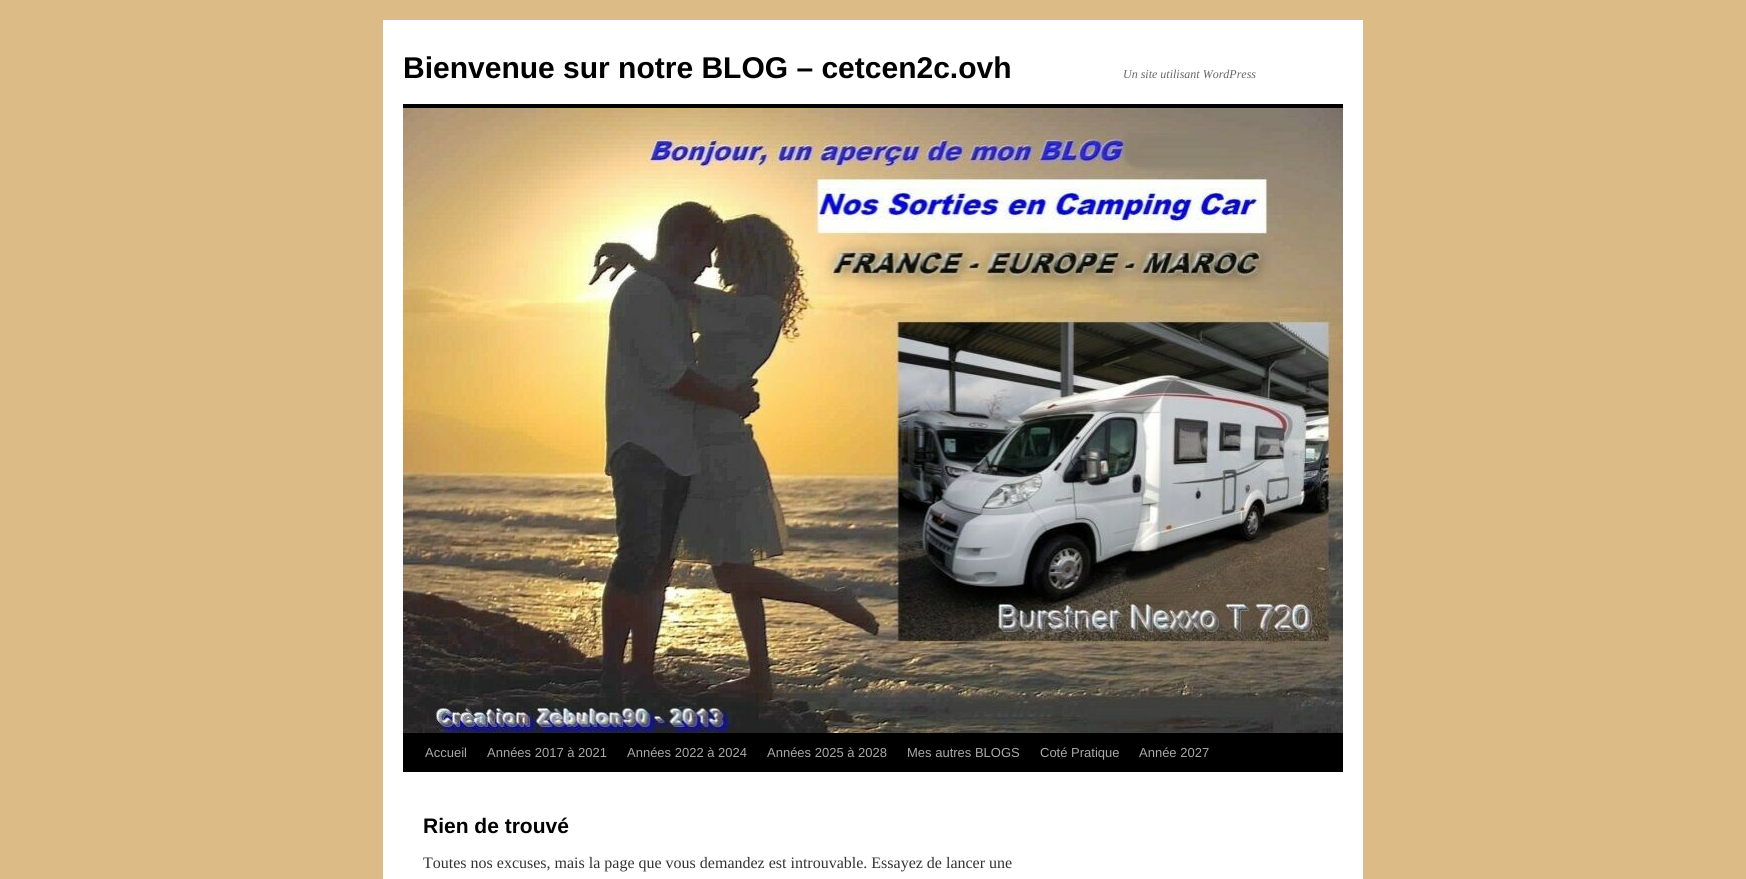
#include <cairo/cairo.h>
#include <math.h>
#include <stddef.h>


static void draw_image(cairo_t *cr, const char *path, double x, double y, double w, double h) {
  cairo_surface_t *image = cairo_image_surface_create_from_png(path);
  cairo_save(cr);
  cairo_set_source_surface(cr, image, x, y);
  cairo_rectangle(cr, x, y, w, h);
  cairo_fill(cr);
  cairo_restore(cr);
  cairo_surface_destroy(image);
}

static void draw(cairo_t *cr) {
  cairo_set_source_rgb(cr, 221 / 255.0, 187 / 255.0, 135 / 255.0);
  cairo_paint(cr);
  cairo_set_source_rgb(cr, 1, 1, 1);
  cairo_rectangle(cr, 383, 20, 980, 859);
  cairo_fill(cr);
  cairo_set_source_rgb(cr, 0, 0, 0);
  cairo_rectangle(cr, 403, 104, 940, 4);
  cairo_fill(cr);
  cairo_rectangle(cr, 403, 733, 940, 39);
  cairo_fill(cr);
  draw_image(cr, "images/1.png", 403, 108, 940, 625);
  cairo_select_font_face(cr, "Liberation Sans", CAIRO_FONT_SLANT_NORMAL, CAIRO_FONT_WEIGHT_BOLD);
  cairo_set_font_size(cr, 30);
  cairo_move_to(cr, 403, 78);
  cairo_show_text(cr, "Bienvenue sur notre BLOG – cetcen2c.ovh");
  cairo_select_font_face(cr, "Liberation Serif", CAIRO_FONT_SLANT_ITALIC, CAIRO_FONT_WEIGHT_NORMAL);
  cairo_set_font_size(cr, 12);
  cairo_set_source_rgb(cr, 102 / 255.0, 102 / 255.0, 102 / 255.0);
  cairo_move_to(cr, 1123, 78);
  cairo_show_text(cr, "Un site utilisant WordPress");
  cairo_select_font_face(cr, "Liberation Sans", CAIRO_FONT_SLANT_NORMAL, CAIRO_FONT_WEIGHT_NORMAL);
  cairo_set_font_size(cr, 13);
  cairo_set_source_rgb(cr, 170 / 255.0, 170 / 255.0, 170 / 255.0);
  cairo_move_to(cr, 425, 757);
  cairo_show_text(cr, "Accueil");
  cairo_move_to(cr, 487, 757);
  cairo_show_text(cr, "Années 2017 à 2021");
  cairo_move_to(cr, 627, 757);
  cairo_show_text(cr, "Années 2022 à 2024");
  cairo_move_to(cr, 767, 757);
  cairo_show_text(cr, "Années 2025 à 2028");
  cairo_move_to(cr, 907, 757);
  cairo_show_text(cr, "Mes autres BLOGS");
  cairo_move_to(cr, 1040, 757);
  cairo_show_text(cr, "Coté Pratique");
  cairo_move_to(cr, 1139, 757);
  cairo_show_text(cr, "Année 2027");
  cairo_select_font_face(cr, "Liberation Sans", CAIRO_FONT_SLANT_NORMAL, CAIRO_FONT_WEIGHT_BOLD);
  cairo_set_font_size(cr, 21);
  cairo_set_source_rgb(cr, 0, 0, 0);
  cairo_move_to(cr, 423, 833);
  cairo_show_text(cr, "Rien de trouvé");
  cairo_select_font_face(cr, "Liberation Serif", CAIRO_FONT_SLANT_NORMAL, CAIRO_FONT_WEIGHT_NORMAL);
  cairo_set_font_size(cr, 16);
  cairo_set_source_rgb(cr, 51 / 255.0, 51 / 255.0, 51 / 255.0);
  cairo_move_to(cr, 423, 868);
  cairo_show_text(cr, "Toutes nos excuses, mais la page que vous demandez est introuvable. Essayez de lancer une");
}

int main(void) {
  cairo_surface_t *surface = cairo_image_surface_create(CAIRO_FORMAT_RGB24, 1746, 879);
  cairo_t *cr = cairo_create(surface);
  cairo_font_options_t *options = cairo_font_options_create();
  cairo_font_options_set_hint_metrics(options, CAIRO_HINT_METRICS_OFF);
  cairo_font_options_set_hint_style(options, CAIRO_HINT_STYLE_NONE);
  cairo_set_font_options(cr, options);
  cairo_set_miter_limit(cr, 4);
  draw(cr);
  cairo_surface_write_to_png(surface, "out.png");
  cairo_font_options_destroy(options);
  cairo_destroy(cr);
  cairo_surface_destroy(surface);
  return 0;
}
